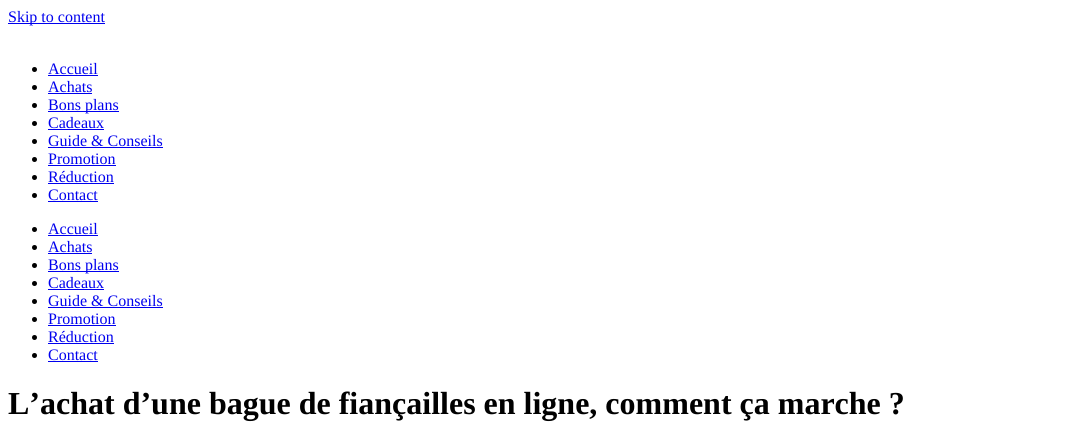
#include <cairo/cairo.h>
#include <math.h>
#include <stddef.h>


static void draw(cairo_t *cr) {
  cairo_set_source_rgb(cr, 1, 1, 1);
  cairo_paint(cr);
  cairo_set_source_rgb(cr, 0, 0, 238 / 255.0);
  cairo_rectangle(cr, 8, 23, 97, 1);
  cairo_fill(cr);
  cairo_set_source_rgb(cr, 0, 0, 0);
  cairo_arc(cr, 34.5, 69.5, 2.5, 0, 2 * M_PI);
  cairo_fill(cr);
  cairo_set_source_rgb(cr, 0, 0, 238 / 255.0);
  cairo_rectangle(cr, 48, 75, 50, 1);
  cairo_fill(cr);
  cairo_set_source_rgb(cr, 0, 0, 0);
  cairo_arc(cr, 34.5, 87.5, 2.5, 0, 2 * M_PI);
  cairo_fill(cr);
  cairo_set_source_rgb(cr, 0, 0, 238 / 255.0);
  cairo_rectangle(cr, 48, 93, 44, 1);
  cairo_fill(cr);
  cairo_set_source_rgb(cr, 0, 0, 0);
  cairo_arc(cr, 34.5, 105.5, 2.5, 0, 2 * M_PI);
  cairo_fill(cr);
  cairo_set_source_rgb(cr, 0, 0, 238 / 255.0);
  cairo_rectangle(cr, 48, 111, 71, 1);
  cairo_fill(cr);
  cairo_set_source_rgb(cr, 0, 0, 0);
  cairo_arc(cr, 34.5, 123.5, 2.5, 0, 2 * M_PI);
  cairo_fill(cr);
  cairo_set_source_rgb(cr, 0, 0, 238 / 255.0);
  cairo_rectangle(cr, 48, 129, 56, 1);
  cairo_fill(cr);
  cairo_set_source_rgb(cr, 0, 0, 0);
  cairo_arc(cr, 34.5, 141.5, 2.5, 0, 2 * M_PI);
  cairo_fill(cr);
  cairo_set_source_rgb(cr, 0, 0, 238 / 255.0);
  cairo_rectangle(cr, 48, 147, 115, 1);
  cairo_fill(cr);
  cairo_set_source_rgb(cr, 0, 0, 0);
  cairo_arc(cr, 34.5, 159.5, 2.5, 0, 2 * M_PI);
  cairo_fill(cr);
  cairo_set_source_rgb(cr, 0, 0, 238 / 255.0);
  cairo_rectangle(cr, 48, 165, 68, 1);
  cairo_fill(cr);
  cairo_set_source_rgb(cr, 0, 0, 0);
  cairo_arc(cr, 34.5, 177.5, 2.5, 0, 2 * M_PI);
  cairo_fill(cr);
  cairo_set_source_rgb(cr, 0, 0, 238 / 255.0);
  cairo_rectangle(cr, 48, 183, 66, 1);
  cairo_fill(cr);
  cairo_set_source_rgb(cr, 0, 0, 0);
  cairo_arc(cr, 34.5, 195.5, 2.5, 0, 2 * M_PI);
  cairo_fill(cr);
  cairo_set_source_rgb(cr, 0, 0, 238 / 255.0);
  cairo_rectangle(cr, 48, 201, 50, 1);
  cairo_fill(cr);
  cairo_set_source_rgb(cr, 0, 0, 0);
  cairo_arc(cr, 34.5, 229.5, 2.5, 0, 2 * M_PI);
  cairo_fill(cr);
  cairo_set_source_rgb(cr, 0, 0, 238 / 255.0);
  cairo_rectangle(cr, 48, 235, 50, 1);
  cairo_fill(cr);
  cairo_set_source_rgb(cr, 0, 0, 0);
  cairo_arc(cr, 34.5, 247.5, 2.5, 0, 2 * M_PI);
  cairo_fill(cr);
  cairo_set_source_rgb(cr, 0, 0, 238 / 255.0);
  cairo_rectangle(cr, 48, 253, 44, 1);
  cairo_fill(cr);
  cairo_set_source_rgb(cr, 0, 0, 0);
  cairo_arc(cr, 34.5, 265.5, 2.5, 0, 2 * M_PI);
  cairo_fill(cr);
  cairo_set_source_rgb(cr, 0, 0, 238 / 255.0);
  cairo_rectangle(cr, 48, 271, 71, 1);
  cairo_fill(cr);
  cairo_set_source_rgb(cr, 0, 0, 0);
  cairo_arc(cr, 34.5, 283.5, 2.5, 0, 2 * M_PI);
  cairo_fill(cr);
  cairo_set_source_rgb(cr, 0, 0, 238 / 255.0);
  cairo_rectangle(cr, 48, 289, 56, 1);
  cairo_fill(cr);
  cairo_set_source_rgb(cr, 0, 0, 0);
  cairo_arc(cr, 34.5, 301.5, 2.5, 0, 2 * M_PI);
  cairo_fill(cr);
  cairo_set_source_rgb(cr, 0, 0, 238 / 255.0);
  cairo_rectangle(cr, 48, 307, 115, 1);
  cairo_fill(cr);
  cairo_set_source_rgb(cr, 0, 0, 0);
  cairo_arc(cr, 34.5, 319.5, 2.5, 0, 2 * M_PI);
  cairo_fill(cr);
  cairo_set_source_rgb(cr, 0, 0, 238 / 255.0);
  cairo_rectangle(cr, 48, 325, 68, 1);
  cairo_fill(cr);
  cairo_set_source_rgb(cr, 0, 0, 0);
  cairo_arc(cr, 34.5, 337.5, 2.5, 0, 2 * M_PI);
  cairo_fill(cr);
  cairo_set_source_rgb(cr, 0, 0, 238 / 255.0);
  cairo_rectangle(cr, 48, 343, 66, 1);
  cairo_fill(cr);
  cairo_set_source_rgb(cr, 0, 0, 0);
  cairo_arc(cr, 34.5, 355.5, 2.5, 0, 2 * M_PI);
  cairo_fill(cr);
  cairo_set_source_rgb(cr, 0, 0, 238 / 255.0);
  cairo_rectangle(cr, 48, 361, 50, 1);
  cairo_fill(cr);
  cairo_select_font_face(cr, "Liberation Serif", CAIRO_FONT_SLANT_NORMAL, CAIRO_FONT_WEIGHT_NORMAL);
  cairo_set_font_size(cr, 16);
  cairo_move_to(cr, 8, 22);
  cairo_show_text(cr, "Skip to content");
  cairo_move_to(cr, 48, 74);
  cairo_show_text(cr, "Accueil");
  cairo_move_to(cr, 48, 92);
  cairo_show_text(cr, "Achats");
  cairo_move_to(cr, 48, 110);
  cairo_show_text(cr, "Bons plans");
  cairo_move_to(cr, 48, 128);
  cairo_show_text(cr, "Cadeaux");
  cairo_move_to(cr, 48, 146);
  cairo_show_text(cr, "Guide & Conseils");
  cairo_move_to(cr, 48, 164);
  cairo_show_text(cr, "Promotion");
  cairo_move_to(cr, 48, 182);
  cairo_show_text(cr, "Réduction");
  cairo_move_to(cr, 48, 200);
  cairo_show_text(cr, "Contact");
  cairo_move_to(cr, 48, 234);
  cairo_show_text(cr, "Accueil");
  cairo_move_to(cr, 48, 252);
  cairo_show_text(cr, "Achats");
  cairo_move_to(cr, 48, 270);
  cairo_show_text(cr, "Bons plans");
  cairo_move_to(cr, 48, 288);
  cairo_show_text(cr, "Cadeaux");
  cairo_move_to(cr, 48, 306);
  cairo_show_text(cr, "Guide & Conseils");
  cairo_move_to(cr, 48, 324);
  cairo_show_text(cr, "Promotion");
  cairo_move_to(cr, 48, 342);
  cairo_show_text(cr, "Réduction");
  cairo_move_to(cr, 48, 360);
  cairo_show_text(cr, "Contact");
  cairo_select_font_face(cr, "Liberation Serif", CAIRO_FONT_SLANT_NORMAL, CAIRO_FONT_WEIGHT_BOLD);
  cairo_set_font_size(cr, 32);
  cairo_set_source_rgb(cr, 0, 0, 0);
  cairo_move_to(cr, 8, 414);
  cairo_show_text(cr, "L’achat d’une bague de fiançailles en ligne, comment ça marche ?");
}

int main(void) {
  cairo_surface_t *surface = cairo_image_surface_create(CAIRO_FORMAT_RGB24, 1087, 425);
  cairo_t *cr = cairo_create(surface);
  cairo_font_options_t *options = cairo_font_options_create();
  cairo_font_options_set_hint_metrics(options, CAIRO_HINT_METRICS_OFF);
  cairo_font_options_set_hint_style(options, CAIRO_HINT_STYLE_NONE);
  cairo_set_font_options(cr, options);
  cairo_set_miter_limit(cr, 4);
  draw(cr);
  cairo_surface_write_to_png(surface, "out.png");
  cairo_font_options_destroy(options);
  cairo_destroy(cr);
  cairo_surface_destroy(surface);
  return 0;
}
